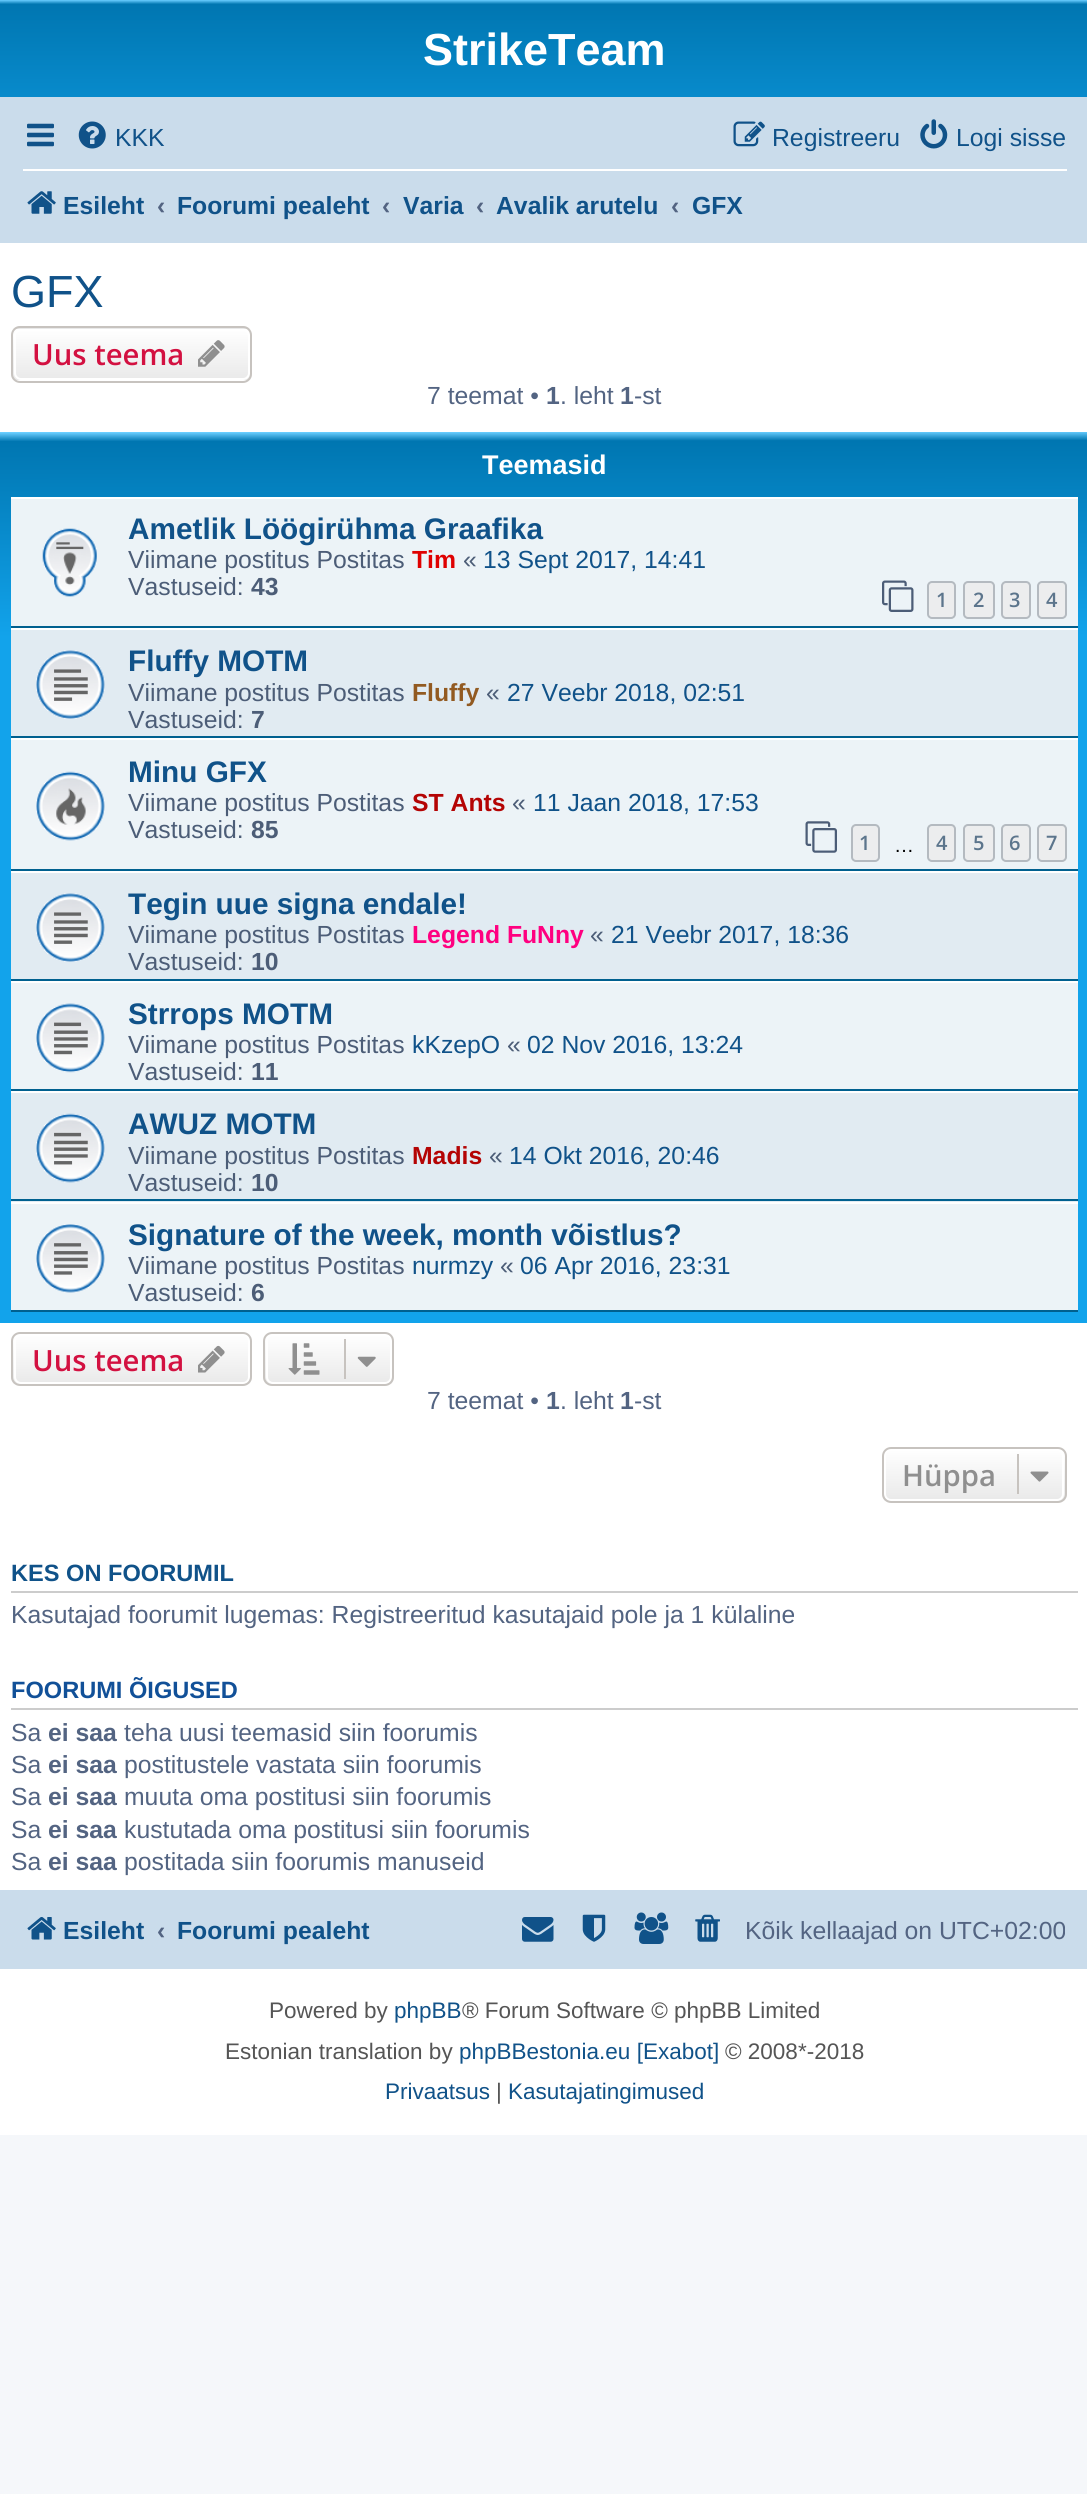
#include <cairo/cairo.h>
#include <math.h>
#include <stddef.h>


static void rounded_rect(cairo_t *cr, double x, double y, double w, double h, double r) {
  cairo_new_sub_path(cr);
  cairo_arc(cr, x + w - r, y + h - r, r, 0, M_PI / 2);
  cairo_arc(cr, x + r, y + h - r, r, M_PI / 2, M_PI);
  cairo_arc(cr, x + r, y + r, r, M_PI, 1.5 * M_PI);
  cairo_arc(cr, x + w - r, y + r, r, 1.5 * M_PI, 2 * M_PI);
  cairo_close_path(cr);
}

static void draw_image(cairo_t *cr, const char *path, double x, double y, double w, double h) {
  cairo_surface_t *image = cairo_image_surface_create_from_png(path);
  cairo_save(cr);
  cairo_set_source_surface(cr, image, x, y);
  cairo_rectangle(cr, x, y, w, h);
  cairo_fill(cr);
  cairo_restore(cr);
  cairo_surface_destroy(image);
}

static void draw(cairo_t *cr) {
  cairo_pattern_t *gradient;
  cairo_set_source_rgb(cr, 245 / 255.0, 247 / 255.0, 250 / 255.0);
  cairo_paint(cr);
  cairo_set_source_rgb(cr, 1, 1, 1);
  cairo_rectangle(cr, 0, 243, 1087, 1892);
  cairo_fill(cr);
  gradient = cairo_pattern_create_linear(545, 0, 545, 207);
  cairo_pattern_add_color_stop_rgba(gradient, 0, 106 / 255.0, 206 / 255.0, 1, 1);
  cairo_pattern_add_color_stop_rgba(gradient, 0.02, 0, 118 / 255.0, 177 / 255.0, 1);
  cairo_pattern_add_color_stop_rgba(gradient, 1, 18 / 255.0, 163 / 255.0, 235 / 255.0, 1);
  cairo_set_source(cr, gradient);
  cairo_pattern_destroy(gradient);
  cairo_rectangle(cr, 0, 0, 1087, 97);
  cairo_fill(cr);
  cairo_set_source_rgb(cr, 202 / 255.0, 220 / 255.0, 235 / 255.0);
  cairo_rectangle(cr, 0, 97, 1087, 146);
  cairo_fill(cr);
  draw_image(cr, "images/1.png", 27, 123, 27, 24);
  draw_image(cr, "images/2.png", 78, 121, 28, 28);
  draw_image(cr, "images/3.png", 733, 121, 32, 26);
  draw_image(cr, "images/4.png", 920, 119, 28, 30);
  cairo_set_source_rgb(cr, 1, 1, 1);
  cairo_rectangle(cr, 23, 169, 1044, 2);
  cairo_fill(cr);
  draw_image(cr, "images/5.png", 27, 191, 29, 23);
  cairo_save(cr);
  rounded_rect(cr, 11, 326, 241, 57, 9);
  cairo_clip(cr);
  gradient = cairo_pattern_create_linear(132, 277, 132, 329);
  cairo_pattern_add_color_stop_rgba(gradient, 0, 1, 1, 1, 1);
  cairo_pattern_add_color_stop_rgba(gradient, 1, 233 / 255.0, 233 / 255.0, 233 / 255.0, 1);
  cairo_set_source(cr, gradient);
  cairo_pattern_destroy(gradient);
  cairo_rectangle(cr, 11, 326, 241, 3);
  cairo_fill(cr);
  gradient = cairo_pattern_create_linear(132, 329, 132, 380);
  cairo_pattern_add_color_stop_rgba(gradient, 0, 1, 1, 1, 1);
  cairo_pattern_add_color_stop_rgba(gradient, 1, 233 / 255.0, 233 / 255.0, 233 / 255.0, 1);
  cairo_set_source(cr, gradient);
  cairo_pattern_destroy(gradient);
  cairo_rectangle(cr, 11, 329, 241, 51);
  cairo_fill(cr);
  cairo_restore(cr);
  rounded_rect(cr, 15, 330, 234, 49, 6);
  cairo_stroke(cr);
  rounded_rect(cr, 12, 327, 239, 55, 8);
  cairo_set_source_rgb(cr, 199 / 255.0, 195 / 255.0, 191 / 255.0);
  cairo_stroke(cr);
  draw_image(cr, "images/6.png", 198, 340, 27, 27);
  gradient = cairo_pattern_create_linear(544, 432, 545, 1323);
  cairo_pattern_add_color_stop_rgba(gradient, 0, 106 / 255.0, 206 / 255.0, 1, 1);
  cairo_pattern_add_color_stop_rgba(gradient, 0.01, 0, 118 / 255.0, 177 / 255.0, 1);
  cairo_pattern_add_color_stop_rgba(gradient, 0.23, 18 / 255.0, 163 / 255.0, 235 / 255.0, 1);
  cairo_pattern_add_color_stop_rgba(gradient, 1, 18 / 255.0, 163 / 255.0, 235 / 255.0, 1);
  cairo_set_source(cr, gradient);
  cairo_pattern_destroy(gradient);
  cairo_rectangle(cr, 0, 432, 1087, 891);
  cairo_fill(cr);
  cairo_set_source_rgb(cr, 236 / 255.0, 243 / 255.0, 247 / 255.0);
  cairo_rectangle(cr, 11, 499, 1067, 127);
  cairo_fill(cr);
  cairo_set_source_rgb(cr, 1, 1, 1);
  cairo_rectangle(cr, 11, 497, 1067, 2);
  cairo_fill(cr);
  cairo_set_source_rgb(cr, 0, 96 / 255.0, 143 / 255.0);
  cairo_rectangle(cr, 11, 626, 1067, 2);
  cairo_fill(cr);
  draw_image(cr, "images/7.png", 42, 528, 55, 69);
  draw_image(cr, "images/8.png", 882, 580, 32, 32);
  cairo_set_source_rgb(cr, 236 / 255.0, 237 / 255.0, 238 / 255.0);
  rounded_rect(cr, 928, 582, 27, 36, 4);
  cairo_fill_preserve(cr);
  cairo_set_source_rgb(cr, 180 / 255.0, 186 / 255.0, 192 / 255.0);
  cairo_stroke(cr);
  cairo_set_source_rgb(cr, 236 / 255.0, 237 / 255.0, 238 / 255.0);
  rounded_rect(cr, 964, 582, 30, 36, 4);
  cairo_fill_preserve(cr);
  cairo_set_source_rgb(cr, 180 / 255.0, 186 / 255.0, 192 / 255.0);
  cairo_stroke(cr);
  cairo_set_source_rgb(cr, 236 / 255.0, 237 / 255.0, 238 / 255.0);
  rounded_rect(cr, 1002, 582, 28, 36, 4);
  cairo_fill_preserve(cr);
  cairo_set_source_rgb(cr, 180 / 255.0, 186 / 255.0, 192 / 255.0);
  cairo_stroke(cr);
  cairo_set_source_rgb(cr, 236 / 255.0, 237 / 255.0, 238 / 255.0);
  rounded_rect(cr, 1038, 582, 28, 36, 4);
  cairo_fill_preserve(cr);
  cairo_set_source_rgb(cr, 180 / 255.0, 186 / 255.0, 192 / 255.0);
  cairo_stroke(cr);
  cairo_set_source_rgb(cr, 225 / 255.0, 235 / 255.0, 242 / 255.0);
  cairo_rectangle(cr, 11, 630, 1067, 106);
  cairo_fill(cr);
  cairo_set_source_rgb(cr, 1, 1, 1);
  cairo_rectangle(cr, 11, 628, 1067, 2);
  cairo_fill(cr);
  cairo_set_source_rgb(cr, 0, 96 / 255.0, 143 / 255.0);
  cairo_rectangle(cr, 11, 736, 1067, 2);
  cairo_fill(cr);
  draw_image(cr, "images/9.png", 36, 650, 69, 69);
  cairo_set_source_rgb(cr, 236 / 255.0, 243 / 255.0, 247 / 255.0);
  cairo_rectangle(cr, 11, 740, 1067, 129);
  cairo_fill(cr);
  cairo_set_source_rgb(cr, 1, 1, 1);
  cairo_rectangle(cr, 11, 738, 1067, 2);
  cairo_fill(cr);
  cairo_set_source_rgb(cr, 0, 96 / 255.0, 143 / 255.0);
  cairo_rectangle(cr, 11, 869, 1067, 2);
  cairo_fill(cr);
  draw_image(cr, "images/10.png", 36, 771, 69, 70);
  draw_image(cr, "images/11.png", 805, 821, 32, 32);
  cairo_set_source_rgb(cr, 236 / 255.0, 237 / 255.0, 238 / 255.0);
  rounded_rect(cr, 852, 825, 27, 36, 4);
  cairo_fill_preserve(cr);
  cairo_set_source_rgb(cr, 180 / 255.0, 186 / 255.0, 192 / 255.0);
  cairo_stroke(cr);
  cairo_set_source_rgb(cr, 236 / 255.0, 237 / 255.0, 238 / 255.0);
  rounded_rect(cr, 928, 825, 27, 36, 4);
  cairo_fill_preserve(cr);
  cairo_set_source_rgb(cr, 180 / 255.0, 186 / 255.0, 192 / 255.0);
  cairo_stroke(cr);
  cairo_set_source_rgb(cr, 236 / 255.0, 237 / 255.0, 238 / 255.0);
  rounded_rect(cr, 964, 825, 30, 36, 4);
  cairo_fill_preserve(cr);
  cairo_set_source_rgb(cr, 180 / 255.0, 186 / 255.0, 192 / 255.0);
  cairo_stroke(cr);
  cairo_set_source_rgb(cr, 236 / 255.0, 237 / 255.0, 238 / 255.0);
  rounded_rect(cr, 1002, 825, 28, 36, 4);
  cairo_fill_preserve(cr);
  cairo_set_source_rgb(cr, 180 / 255.0, 186 / 255.0, 192 / 255.0);
  cairo_stroke(cr);
  cairo_set_source_rgb(cr, 236 / 255.0, 237 / 255.0, 238 / 255.0);
  rounded_rect(cr, 1038, 825, 28, 36, 4);
  cairo_fill_preserve(cr);
  cairo_set_source_rgb(cr, 180 / 255.0, 186 / 255.0, 192 / 255.0);
  cairo_stroke(cr);
  cairo_set_source_rgb(cr, 225 / 255.0, 235 / 255.0, 242 / 255.0);
  cairo_rectangle(cr, 11, 873, 1067, 106);
  cairo_fill(cr);
  cairo_set_source_rgb(cr, 1, 1, 1);
  cairo_rectangle(cr, 11, 871, 1067, 2);
  cairo_fill(cr);
  cairo_set_source_rgb(cr, 0, 96 / 255.0, 143 / 255.0);
  cairo_rectangle(cr, 11, 979, 1067, 2);
  cairo_fill(cr);
  draw_image(cr, "images/9.png", 36, 893, 69, 69);
  cairo_set_source_rgb(cr, 236 / 255.0, 243 / 255.0, 247 / 255.0);
  cairo_rectangle(cr, 11, 983, 1067, 106);
  cairo_fill(cr);
  cairo_set_source_rgb(cr, 1, 1, 1);
  cairo_rectangle(cr, 11, 981, 1067, 2);
  cairo_fill(cr);
  cairo_set_source_rgb(cr, 0, 96 / 255.0, 143 / 255.0);
  cairo_rectangle(cr, 11, 1089, 1067, 2);
  cairo_fill(cr);
  draw_image(cr, "images/12.png", 36, 1003, 69, 70);
  cairo_set_source_rgb(cr, 225 / 255.0, 235 / 255.0, 242 / 255.0);
  cairo_rectangle(cr, 11, 1093, 1067, 109);
  cairo_fill(cr);
  cairo_set_source_rgb(cr, 1, 1, 1);
  cairo_rectangle(cr, 11, 1091, 1067, 2);
  cairo_fill(cr);
  cairo_set_source_rgb(cr, 0, 96 / 255.0, 143 / 255.0);
  cairo_rectangle(cr, 11, 1199, 1067, 2);
  cairo_fill(cr);
  draw_image(cr, "images/13.png", 36, 1113, 69, 70);
  cairo_set_source_rgb(cr, 236 / 255.0, 243 / 255.0, 247 / 255.0);
  cairo_rectangle(cr, 11, 1204, 1067, 106);
  cairo_fill(cr);
  cairo_set_source_rgb(cr, 1, 1, 1);
  cairo_rectangle(cr, 11, 1202, 1067, 2);
  cairo_fill(cr);
  cairo_set_source_rgb(cr, 0, 96 / 255.0, 143 / 255.0);
  cairo_rectangle(cr, 11, 1310, 1067, 2);
  cairo_fill(cr);
  draw_image(cr, "images/14.png", 36, 1224, 69, 69);
  cairo_save(cr);
  rounded_rect(cr, 11, 1332, 241, 54, 9);
  cairo_clip(cr);
  gradient = cairo_pattern_create_linear(132, 1334, 132, 1384);
  cairo_pattern_add_color_stop_rgba(gradient, 0, 1, 1, 1, 1);
  cairo_pattern_add_color_stop_rgba(gradient, 1, 233 / 255.0, 233 / 255.0, 233 / 255.0, 1);
  cairo_set_source(cr, gradient);
  cairo_pattern_destroy(gradient);
  cairo_rectangle(cr, 11, 1334, 241, 50);
  cairo_fill(cr);
  cairo_restore(cr);
  rounded_rect(cr, 15, 1335, 234, 48, 6);
  cairo_set_source_rgb(cr, 1, 1, 1);
  cairo_stroke(cr);
  rounded_rect(cr, 12, 1333, 239, 52, 8);
  cairo_set_source_rgb(cr, 199 / 255.0, 195 / 255.0, 191 / 255.0);
  cairo_stroke(cr);
  draw_image(cr, "images/15.png", 198, 1345, 27, 28);
  cairo_save(cr);
  rounded_rect(cr, 263, 1332, 131, 54, 9);
  cairo_clip(cr);
  gradient = cairo_pattern_create_linear(329, 1334, 329, 1384);
  cairo_pattern_add_color_stop_rgba(gradient, 0, 1, 1, 1, 1);
  cairo_pattern_add_color_stop_rgba(gradient, 1, 233 / 255.0, 233 / 255.0, 233 / 255.0, 1);
  cairo_set_source(cr, gradient);
  cairo_pattern_destroy(gradient);
  cairo_rectangle(cr, 263, 1334, 131, 50);
  cairo_fill(cr);
  cairo_restore(cr);
  rounded_rect(cr, 267, 1335, 124, 48, 6);
  cairo_set_source_rgb(cr, 1, 1, 1);
  cairo_stroke(cr);
  rounded_rect(cr, 264, 1333, 129, 52, 8);
  cairo_set_source_rgb(cr, 199 / 255.0, 195 / 255.0, 191 / 255.0);
  cairo_stroke(cr);
  draw_image(cr, "images/16.png", 288, 1343, 32, 32);
  cairo_rectangle(cr, 344, 1339, 2, 40);
  cairo_fill(cr);
  draw_image(cr, "images/17.png", 357, 1356, 19, 11);
  cairo_save(cr);
  rounded_rect(cr, 882, 1447, 185, 56, 9);
  cairo_clip(cr);
  gradient = cairo_pattern_create_linear(974, 1449, 974, 1501);
  cairo_pattern_add_color_stop_rgba(gradient, 0, 1, 1, 1, 1);
  cairo_pattern_add_color_stop_rgba(gradient, 1, 233 / 255.0, 233 / 255.0, 233 / 255.0, 1);
  cairo_set_source(cr, gradient);
  cairo_pattern_destroy(gradient);
  cairo_rectangle(cr, 882, 1449, 185, 52);
  cairo_fill(cr);
  cairo_restore(cr);
  rounded_rect(cr, 885, 1450, 178, 50, 6);
  cairo_set_source_rgb(cr, 1, 1, 1);
  cairo_stroke(cr);
  rounded_rect(cr, 883, 1448, 183, 54, 8);
  cairo_set_source_rgb(cr, 199 / 255.0, 195 / 255.0, 191 / 255.0);
  cairo_stroke(cr);
  cairo_rectangle(cr, 1017, 1454, 2, 40);
  cairo_fill(cr);
  draw_image(cr, "images/18.png", 1030, 1471, 19, 11);
  cairo_set_source_rgb(cr, 204 / 255.0, 204 / 255.0, 204 / 255.0);
  cairo_rectangle(cr, 11, 1591, 1067, 2);
  cairo_fill(cr);
  cairo_rectangle(cr, 11, 1708, 1067, 2);
  cairo_fill(cr);
  cairo_set_source_rgb(cr, 202 / 255.0, 220 / 255.0, 235 / 255.0);
  cairo_rectangle(cr, 0, 1890, 1087, 79);
  cairo_fill(cr);
  draw_image(cr, "images/19.png", 27, 1917, 29, 23);
  draw_image(cr, "images/20.png", 522, 1917, 32, 25);
  draw_image(cr, "images/21.png", 582, 1914, 24, 28);
  draw_image(cr, "images/22.png", 634, 1912, 35, 32);
  draw_image(cr, "images/23.png", 695, 1914, 25, 28);
  cairo_select_font_face(cr, "Liberation Sans", CAIRO_FONT_SLANT_NORMAL, CAIRO_FONT_WEIGHT_BOLD);
  cairo_set_font_size(cr, 45);
  cairo_set_source_rgb(cr, 1, 1, 1);
  cairo_move_to(cr, 423, 65);
  cairo_show_text(cr, "StrikeTeam");
  cairo_select_font_face(cr, "Liberation Sans", CAIRO_FONT_SLANT_NORMAL, CAIRO_FONT_WEIGHT_NORMAL);
  cairo_set_font_size(cr, 24.75);
  cairo_set_source_rgb(cr, 16 / 255.0, 82 / 255.0, 137 / 255.0);
  cairo_move_to(cr, 115, 146);
  cairo_show_text(cr, "KKK");
  cairo_move_to(cr, 772, 146);
  cairo_show_text(cr, "Registreeru");
  cairo_move_to(cr, 956, 146);
  cairo_show_text(cr, "Logi sisse");
  cairo_select_font_face(cr, "Liberation Sans", CAIRO_FONT_SLANT_NORMAL, CAIRO_FONT_WEIGHT_BOLD);
  cairo_move_to(cr, 63, 214);
  cairo_show_text(cr, "Esileht");
  cairo_set_source_rgb(cr, 83 / 255.0, 100 / 255.0, 130 / 255.0);
  cairo_move_to(cr, 157, 214);
  cairo_show_text(cr, "‹");
  cairo_save(cr);
  cairo_rectangle(cr, 178, 178, 191, 54);
  cairo_clip(cr);
  cairo_set_source_rgb(cr, 16 / 255.0, 82 / 255.0, 137 / 255.0);
  cairo_move_to(cr, 177, 214);
  cairo_show_text(cr, "Foorumi pealeht");
  cairo_restore(cr);
  cairo_move_to(cr, 382, 214);
  cairo_show_text(cr, "‹");
  cairo_set_source_rgb(cr, 16 / 255.0, 82 / 255.0, 137 / 255.0);
  cairo_move_to(cr, 403, 214);
  cairo_show_text(cr, "Varia");
  cairo_set_source_rgb(cr, 83 / 255.0, 100 / 255.0, 130 / 255.0);
  cairo_move_to(cr, 476, 214);
  cairo_show_text(cr, "‹");
  cairo_set_source_rgb(cr, 16 / 255.0, 82 / 255.0, 137 / 255.0);
  cairo_move_to(cr, 496, 214);
  cairo_show_text(cr, "Avalik arutelu");
  cairo_set_source_rgb(cr, 83 / 255.0, 100 / 255.0, 130 / 255.0);
  cairo_move_to(cr, 671, 214);
  cairo_show_text(cr, "‹");
  cairo_set_source_rgb(cr, 16 / 255.0, 82 / 255.0, 137 / 255.0);
  cairo_move_to(cr, 692, 214);
  cairo_show_text(cr, "GFX");
  cairo_select_font_face(cr, "Liberation Sans", CAIRO_FONT_SLANT_NORMAL, CAIRO_FONT_WEIGHT_NORMAL);
  cairo_set_font_size(cr, 45);
  cairo_move_to(cr, 11, 307);
  cairo_show_text(cr, "GFX");
  cairo_select_font_face(cr, "Open Sans SemiBold", CAIRO_FONT_SLANT_NORMAL, CAIRO_FONT_WEIGHT_NORMAL);
  cairo_set_font_size(cr, 29.25);
  cairo_set_source_rgb(cr, 211 / 255.0, 17 / 255.0, 65 / 255.0);
  cairo_move_to(cr, 32, 365);
  cairo_show_text(cr, "Uus teema");
  cairo_select_font_face(cr, "Liberation Sans", CAIRO_FONT_SLANT_NORMAL, CAIRO_FONT_WEIGHT_NORMAL);
  cairo_set_font_size(cr, 24.75);
  cairo_set_source_rgb(cr, 83 / 255.0, 100 / 255.0, 130 / 255.0);
  cairo_move_to(cr, 427, 404);
  cairo_show_text(cr, "7 teemat •");
  cairo_select_font_face(cr, "Liberation Sans", CAIRO_FONT_SLANT_NORMAL, CAIRO_FONT_WEIGHT_BOLD);
  cairo_move_to(cr, 546, 404);
  cairo_show_text(cr, "1");
  cairo_select_font_face(cr, "Liberation Sans", CAIRO_FONT_SLANT_NORMAL, CAIRO_FONT_WEIGHT_NORMAL);
  cairo_move_to(cr, 560, 404);
  cairo_show_text(cr, ". leht");
  cairo_select_font_face(cr, "Liberation Sans", CAIRO_FONT_SLANT_NORMAL, CAIRO_FONT_WEIGHT_BOLD);
  cairo_move_to(cr, 620, 404);
  cairo_show_text(cr, "1");
  cairo_select_font_face(cr, "Liberation Sans", CAIRO_FONT_SLANT_NORMAL, CAIRO_FONT_WEIGHT_NORMAL);
  cairo_move_to(cr, 634, 404);
  cairo_show_text(cr, "-st");
  cairo_select_font_face(cr, "Liberation Sans", CAIRO_FONT_SLANT_NORMAL, CAIRO_FONT_WEIGHT_BOLD);
  cairo_set_font_size(cr, 27);
  cairo_set_source_rgb(cr, 1, 1, 1);
  cairo_move_to(cr, 482, 474);
  cairo_show_text(cr, "Teemasid");
  cairo_set_font_size(cr, 29.75);
  cairo_set_source_rgb(cr, 16 / 255.0, 82 / 255.0, 137 / 255.0);
  cairo_move_to(cr, 128, 539);
  cairo_show_text(cr, "Ametlik Löögirühma Graafika");
  cairo_select_font_face(cr, "Liberation Sans", CAIRO_FONT_SLANT_NORMAL, CAIRO_FONT_WEIGHT_NORMAL);
  cairo_set_font_size(cr, 24.75);
  cairo_set_source_rgb(cr, 76 / 255.0, 93 / 255.0, 119 / 255.0);
  cairo_move_to(cr, 128, 568);
  cairo_show_text(cr, "Viimane postitus Postitas");
  cairo_select_font_face(cr, "Liberation Sans", CAIRO_FONT_SLANT_NORMAL, CAIRO_FONT_WEIGHT_BOLD);
  cairo_set_source_rgb(cr, 223 / 255.0, 1 / 255.0, 1 / 255.0);
  cairo_move_to(cr, 412, 568);
  cairo_show_text(cr, "Tim");
  cairo_select_font_face(cr, "Liberation Sans", CAIRO_FONT_SLANT_NORMAL, CAIRO_FONT_WEIGHT_NORMAL);
  cairo_set_source_rgb(cr, 76 / 255.0, 93 / 255.0, 119 / 255.0);
  cairo_move_to(cr, 463, 568);
  cairo_show_text(cr, "«");
  cairo_set_source_rgb(cr, 16 / 255.0, 82 / 255.0, 137 / 255.0);
  cairo_move_to(cr, 483, 568);
  cairo_show_text(cr, "13 Sept 2017, 14:41");
  cairo_set_source_rgb(cr, 76 / 255.0, 93 / 255.0, 119 / 255.0);
  cairo_move_to(cr, 128, 595);
  cairo_show_text(cr, "Vastuseid:");
  cairo_select_font_face(cr, "Liberation Sans", CAIRO_FONT_SLANT_NORMAL, CAIRO_FONT_WEIGHT_BOLD);
  cairo_move_to(cr, 251, 595);
  cairo_show_text(cr, "43");
  cairo_select_font_face(cr, "Open Sans SemiBold", CAIRO_FONT_SLANT_NORMAL, CAIRO_FONT_WEIGHT_NORMAL);
  cairo_set_font_size(cr, 20);
  cairo_set_source_rgb(cr, 92 / 255.0, 117 / 255.0, 140 / 255.0);
  cairo_move_to(cr, 936, 607);
  cairo_show_text(cr, "1");
  cairo_move_to(cr, 973, 607);
  cairo_show_text(cr, "2");
  cairo_move_to(cr, 1009, 607);
  cairo_show_text(cr, "3");
  cairo_move_to(cr, 1046, 607);
  cairo_show_text(cr, "4");
  cairo_select_font_face(cr, "Liberation Sans", CAIRO_FONT_SLANT_NORMAL, CAIRO_FONT_WEIGHT_BOLD);
  cairo_set_font_size(cr, 29.75);
  cairo_set_source_rgb(cr, 16 / 255.0, 82 / 255.0, 137 / 255.0);
  cairo_move_to(cr, 128, 671);
  cairo_show_text(cr, "Fluffy MOTM");
  cairo_select_font_face(cr, "Liberation Sans", CAIRO_FONT_SLANT_NORMAL, CAIRO_FONT_WEIGHT_NORMAL);
  cairo_set_font_size(cr, 24.75);
  cairo_set_source_rgb(cr, 76 / 255.0, 93 / 255.0, 119 / 255.0);
  cairo_move_to(cr, 128, 701);
  cairo_show_text(cr, "Viimane postitus Postitas");
  cairo_select_font_face(cr, "Liberation Sans", CAIRO_FONT_SLANT_NORMAL, CAIRO_FONT_WEIGHT_BOLD);
  cairo_set_source_rgb(cr, 146 / 255.0, 90 / 255.0, 33 / 255.0);
  cairo_move_to(cr, 412, 701);
  cairo_show_text(cr, "Fluffy");
  cairo_select_font_face(cr, "Liberation Sans", CAIRO_FONT_SLANT_NORMAL, CAIRO_FONT_WEIGHT_NORMAL);
  cairo_set_source_rgb(cr, 76 / 255.0, 93 / 255.0, 119 / 255.0);
  cairo_move_to(cr, 486, 701);
  cairo_show_text(cr, "«");
  cairo_set_source_rgb(cr, 16 / 255.0, 82 / 255.0, 137 / 255.0);
  cairo_move_to(cr, 507, 701);
  cairo_show_text(cr, "27 Veebr 2018, 02:51");
  cairo_set_source_rgb(cr, 76 / 255.0, 93 / 255.0, 119 / 255.0);
  cairo_move_to(cr, 128, 728);
  cairo_show_text(cr, "Vastuseid:");
  cairo_select_font_face(cr, "Liberation Sans", CAIRO_FONT_SLANT_NORMAL, CAIRO_FONT_WEIGHT_BOLD);
  cairo_move_to(cr, 251, 728);
  cairo_show_text(cr, "7");
  cairo_set_font_size(cr, 29.75);
  cairo_set_source_rgb(cr, 16 / 255.0, 82 / 255.0, 137 / 255.0);
  cairo_move_to(cr, 128, 782);
  cairo_show_text(cr, "Minu GFX");
  cairo_select_font_face(cr, "Liberation Sans", CAIRO_FONT_SLANT_NORMAL, CAIRO_FONT_WEIGHT_NORMAL);
  cairo_set_font_size(cr, 24.75);
  cairo_set_source_rgb(cr, 76 / 255.0, 93 / 255.0, 119 / 255.0);
  cairo_move_to(cr, 128, 811);
  cairo_show_text(cr, "Viimane postitus Postitas");
  cairo_select_font_face(cr, "Liberation Sans", CAIRO_FONT_SLANT_NORMAL, CAIRO_FONT_WEIGHT_BOLD);
  cairo_set_source_rgb(cr, 180 / 255.0, 4 / 255.0, 4 / 255.0);
  cairo_move_to(cr, 412, 811);
  cairo_show_text(cr, "ST Ants");
  cairo_select_font_face(cr, "Liberation Sans", CAIRO_FONT_SLANT_NORMAL, CAIRO_FONT_WEIGHT_NORMAL);
  cairo_set_source_rgb(cr, 76 / 255.0, 93 / 255.0, 119 / 255.0);
  cairo_move_to(cr, 512, 811);
  cairo_show_text(cr, "«");
  cairo_set_source_rgb(cr, 16 / 255.0, 82 / 255.0, 137 / 255.0);
  cairo_move_to(cr, 533, 811);
  cairo_show_text(cr, "11 Jaan 2018, 17:53");
  cairo_set_source_rgb(cr, 76 / 255.0, 93 / 255.0, 119 / 255.0);
  cairo_move_to(cr, 128, 838);
  cairo_show_text(cr, "Vastuseid:");
  cairo_select_font_face(cr, "Liberation Sans", CAIRO_FONT_SLANT_NORMAL, CAIRO_FONT_WEIGHT_BOLD);
  cairo_move_to(cr, 251, 838);
  cairo_show_text(cr, "85");
  cairo_select_font_face(cr, "Open Sans SemiBold", CAIRO_FONT_SLANT_NORMAL, CAIRO_FONT_WEIGHT_NORMAL);
  cairo_set_font_size(cr, 20);
  cairo_set_source_rgb(cr, 92 / 255.0, 117 / 255.0, 140 / 255.0);
  cairo_move_to(cr, 859, 850);
  cairo_show_text(cr, "1");
  cairo_move_to(cr, 936, 850);
  cairo_show_text(cr, "4");
  cairo_move_to(cr, 973, 850);
  cairo_show_text(cr, "5");
  cairo_move_to(cr, 1009, 850);
  cairo_show_text(cr, "6");
  cairo_move_to(cr, 1046, 850);
  cairo_show_text(cr, "7");
  cairo_select_font_face(cr, "Liberation Sans", CAIRO_FONT_SLANT_NORMAL, CAIRO_FONT_WEIGHT_NORMAL);
  cairo_set_source_rgb(cr, 0, 0, 0);
  cairo_move_to(cr, 894, 852);
  cairo_show_text(cr, "…");
  cairo_select_font_face(cr, "Liberation Sans", CAIRO_FONT_SLANT_NORMAL, CAIRO_FONT_WEIGHT_BOLD);
  cairo_set_font_size(cr, 29.75);
  cairo_set_source_rgb(cr, 16 / 255.0, 82 / 255.0, 137 / 255.0);
  cairo_move_to(cr, 128, 914);
  cairo_show_text(cr, "Tegin uue signa endale!");
  cairo_select_font_face(cr, "Liberation Sans", CAIRO_FONT_SLANT_NORMAL, CAIRO_FONT_WEIGHT_NORMAL);
  cairo_set_font_size(cr, 24.75);
  cairo_set_source_rgb(cr, 76 / 255.0, 93 / 255.0, 119 / 255.0);
  cairo_move_to(cr, 128, 943);
  cairo_show_text(cr, "Viimane postitus Postitas");
  cairo_select_font_face(cr, "Liberation Sans", CAIRO_FONT_SLANT_NORMAL, CAIRO_FONT_WEIGHT_BOLD);
  cairo_set_source_rgb(cr, 1, 0, 128 / 255.0);
  cairo_move_to(cr, 412, 943);
  cairo_show_text(cr, "Legend FuNny");
  cairo_select_font_face(cr, "Liberation Sans", CAIRO_FONT_SLANT_NORMAL, CAIRO_FONT_WEIGHT_NORMAL);
  cairo_set_source_rgb(cr, 76 / 255.0, 93 / 255.0, 119 / 255.0);
  cairo_move_to(cr, 590, 943);
  cairo_show_text(cr, "«");
  cairo_set_source_rgb(cr, 16 / 255.0, 82 / 255.0, 137 / 255.0);
  cairo_move_to(cr, 611, 943);
  cairo_show_text(cr, "21 Veebr 2017, 18:36");
  cairo_set_source_rgb(cr, 76 / 255.0, 93 / 255.0, 119 / 255.0);
  cairo_move_to(cr, 128, 970);
  cairo_show_text(cr, "Vastuseid:");
  cairo_select_font_face(cr, "Liberation Sans", CAIRO_FONT_SLANT_NORMAL, CAIRO_FONT_WEIGHT_BOLD);
  cairo_move_to(cr, 251, 970);
  cairo_show_text(cr, "10");
  cairo_set_font_size(cr, 29.75);
  cairo_set_source_rgb(cr, 16 / 255.0, 82 / 255.0, 137 / 255.0);
  cairo_move_to(cr, 128, 1024);
  cairo_show_text(cr, "Strrops MOTM");
  cairo_select_font_face(cr, "Liberation Sans", CAIRO_FONT_SLANT_NORMAL, CAIRO_FONT_WEIGHT_NORMAL);
  cairo_set_font_size(cr, 24.75);
  cairo_set_source_rgb(cr, 76 / 255.0, 93 / 255.0, 119 / 255.0);
  cairo_move_to(cr, 128, 1053);
  cairo_show_text(cr, "Viimane postitus Postitas");
  cairo_set_source_rgb(cr, 16 / 255.0, 82 / 255.0, 137 / 255.0);
  cairo_move_to(cr, 412, 1053);
  cairo_show_text(cr, "kKzepO");
  cairo_set_source_rgb(cr, 76 / 255.0, 93 / 255.0, 119 / 255.0);
  cairo_move_to(cr, 507, 1053);
  cairo_show_text(cr, "«");
  cairo_set_source_rgb(cr, 16 / 255.0, 82 / 255.0, 137 / 255.0);
  cairo_move_to(cr, 527, 1053);
  cairo_show_text(cr, "02 Nov 2016, 13:24");
  cairo_set_source_rgb(cr, 76 / 255.0, 93 / 255.0, 119 / 255.0);
  cairo_move_to(cr, 128, 1080);
  cairo_show_text(cr, "Vastuseid:");
  cairo_select_font_face(cr, "Liberation Sans", CAIRO_FONT_SLANT_NORMAL, CAIRO_FONT_WEIGHT_BOLD);
  cairo_move_to(cr, 251, 1080);
  cairo_show_text(cr, "11");
  cairo_set_font_size(cr, 29.75);
  cairo_set_source_rgb(cr, 16 / 255.0, 82 / 255.0, 137 / 255.0);
  cairo_move_to(cr, 128, 1134);
  cairo_show_text(cr, "AWUZ MOTM");
  cairo_select_font_face(cr, "Liberation Sans", CAIRO_FONT_SLANT_NORMAL, CAIRO_FONT_WEIGHT_NORMAL);
  cairo_set_font_size(cr, 24.75);
  cairo_set_source_rgb(cr, 76 / 255.0, 93 / 255.0, 119 / 255.0);
  cairo_move_to(cr, 128, 1164);
  cairo_show_text(cr, "Viimane postitus Postitas");
  cairo_select_font_face(cr, "Liberation Sans", CAIRO_FONT_SLANT_NORMAL, CAIRO_FONT_WEIGHT_BOLD);
  cairo_set_source_rgb(cr, 180 / 255.0, 4 / 255.0, 4 / 255.0);
  cairo_move_to(cr, 412, 1164);
  cairo_show_text(cr, "Madis");
  cairo_select_font_face(cr, "Liberation Sans", CAIRO_FONT_SLANT_NORMAL, CAIRO_FONT_WEIGHT_NORMAL);
  cairo_set_source_rgb(cr, 76 / 255.0, 93 / 255.0, 119 / 255.0);
  cairo_move_to(cr, 489, 1164);
  cairo_show_text(cr, "«");
  cairo_set_source_rgb(cr, 16 / 255.0, 82 / 255.0, 137 / 255.0);
  cairo_move_to(cr, 509, 1164);
  cairo_show_text(cr, "14 Okt 2016, 20:46");
  cairo_set_source_rgb(cr, 76 / 255.0, 93 / 255.0, 119 / 255.0);
  cairo_move_to(cr, 128, 1191);
  cairo_show_text(cr, "Vastuseid:");
  cairo_select_font_face(cr, "Liberation Sans", CAIRO_FONT_SLANT_NORMAL, CAIRO_FONT_WEIGHT_BOLD);
  cairo_move_to(cr, 251, 1191);
  cairo_show_text(cr, "10");
  cairo_set_font_size(cr, 29.75);
  cairo_set_source_rgb(cr, 16 / 255.0, 82 / 255.0, 137 / 255.0);
  cairo_move_to(cr, 128, 1245);
  cairo_show_text(cr, "Signature of the week, month võistlus?");
  cairo_select_font_face(cr, "Liberation Sans", CAIRO_FONT_SLANT_NORMAL, CAIRO_FONT_WEIGHT_NORMAL);
  cairo_set_font_size(cr, 24.75);
  cairo_set_source_rgb(cr, 76 / 255.0, 93 / 255.0, 119 / 255.0);
  cairo_move_to(cr, 128, 1274);
  cairo_show_text(cr, "Viimane postitus Postitas");
  cairo_set_source_rgb(cr, 16 / 255.0, 82 / 255.0, 137 / 255.0);
  cairo_move_to(cr, 412, 1274);
  cairo_show_text(cr, "nurmzy");
  cairo_set_source_rgb(cr, 76 / 255.0, 93 / 255.0, 119 / 255.0);
  cairo_move_to(cr, 500, 1274);
  cairo_show_text(cr, "«");
  cairo_set_source_rgb(cr, 16 / 255.0, 82 / 255.0, 137 / 255.0);
  cairo_move_to(cr, 520, 1274);
  cairo_show_text(cr, "06 Apr 2016, 23:31");
  cairo_set_source_rgb(cr, 76 / 255.0, 93 / 255.0, 119 / 255.0);
  cairo_move_to(cr, 128, 1301);
  cairo_show_text(cr, "Vastuseid:");
  cairo_select_font_face(cr, "Liberation Sans", CAIRO_FONT_SLANT_NORMAL, CAIRO_FONT_WEIGHT_BOLD);
  cairo_move_to(cr, 251, 1301);
  cairo_show_text(cr, "6");
  cairo_select_font_face(cr, "Open Sans SemiBold", CAIRO_FONT_SLANT_NORMAL, CAIRO_FONT_WEIGHT_NORMAL);
  cairo_set_font_size(cr, 29.25);
  cairo_set_source_rgb(cr, 211 / 255.0, 17 / 255.0, 65 / 255.0);
  cairo_move_to(cr, 32, 1371);
  cairo_show_text(cr, "Uus teema");
  cairo_select_font_face(cr, "Liberation Sans", CAIRO_FONT_SLANT_NORMAL, CAIRO_FONT_WEIGHT_NORMAL);
  cairo_set_font_size(cr, 24.75);
  cairo_set_source_rgb(cr, 83 / 255.0, 100 / 255.0, 130 / 255.0);
  cairo_move_to(cr, 427, 1409);
  cairo_show_text(cr, "7 teemat •");
  cairo_select_font_face(cr, "Liberation Sans", CAIRO_FONT_SLANT_NORMAL, CAIRO_FONT_WEIGHT_BOLD);
  cairo_move_to(cr, 546, 1409);
  cairo_show_text(cr, "1");
  cairo_select_font_face(cr, "Liberation Sans", CAIRO_FONT_SLANT_NORMAL, CAIRO_FONT_WEIGHT_NORMAL);
  cairo_move_to(cr, 560, 1409);
  cairo_show_text(cr, ". leht");
  cairo_select_font_face(cr, "Liberation Sans", CAIRO_FONT_SLANT_NORMAL, CAIRO_FONT_WEIGHT_BOLD);
  cairo_move_to(cr, 620, 1409);
  cairo_show_text(cr, "1");
  cairo_select_font_face(cr, "Liberation Sans", CAIRO_FONT_SLANT_NORMAL, CAIRO_FONT_WEIGHT_NORMAL);
  cairo_move_to(cr, 634, 1409);
  cairo_show_text(cr, "-st");
  cairo_select_font_face(cr, "Open Sans SemiBold", CAIRO_FONT_SLANT_NORMAL, CAIRO_FONT_WEIGHT_NORMAL);
  cairo_set_font_size(cr, 29.25);
  cairo_set_source_rgb(cr, 143 / 255.0, 143 / 255.0, 143 / 255.0);
  cairo_move_to(cr, 902, 1486);
  cairo_show_text(cr, "Hüppa");
  cairo_select_font_face(cr, "Liberation Sans", CAIRO_FONT_SLANT_NORMAL, CAIRO_FONT_WEIGHT_BOLD);
  cairo_set_font_size(cr, 23.6);
  cairo_set_source_rgb(cr, 16 / 255.0, 82 / 255.0, 137 / 255.0);
  cairo_move_to(cr, 11, 1581);
  cairo_show_text(cr, "KES ON FOORUMIL");
  cairo_select_font_face(cr, "Liberation Sans", CAIRO_FONT_SLANT_NORMAL, CAIRO_FONT_WEIGHT_NORMAL);
  cairo_set_font_size(cr, 24.75);
  cairo_set_source_rgb(cr, 83 / 255.0, 100 / 255.0, 130 / 255.0);
  cairo_move_to(cr, 11, 1623);
  cairo_show_text(cr, "Kasutajad foorumit lugemas: Registreeritud kasutajaid pole ja 1 külaline");
  cairo_select_font_face(cr, "Liberation Sans", CAIRO_FONT_SLANT_NORMAL, CAIRO_FONT_WEIGHT_BOLD);
  cairo_set_font_size(cr, 23.6);
  cairo_set_source_rgb(cr, 17 / 255.0, 80 / 255.0, 152 / 255.0);
  cairo_move_to(cr, 11, 1698);
  cairo_show_text(cr, "FOORUMI ÕIGUSED");
  cairo_select_font_face(cr, "Liberation Sans", CAIRO_FONT_SLANT_NORMAL, CAIRO_FONT_WEIGHT_NORMAL);
  cairo_set_font_size(cr, 24.75);
  cairo_set_source_rgb(cr, 83 / 255.0, 100 / 255.0, 130 / 255.0);
  cairo_move_to(cr, 11, 1741);
  cairo_show_text(cr, "Sa");
  cairo_select_font_face(cr, "Liberation Sans", CAIRO_FONT_SLANT_NORMAL, CAIRO_FONT_WEIGHT_BOLD);
  cairo_move_to(cr, 48, 1741);
  cairo_show_text(cr, "ei saa");
  cairo_select_font_face(cr, "Liberation Sans", CAIRO_FONT_SLANT_NORMAL, CAIRO_FONT_WEIGHT_NORMAL);
  cairo_move_to(cr, 124, 1741);
  cairo_show_text(cr, "teha uusi teemasid siin foorumis");
  cairo_move_to(cr, 11, 1773);
  cairo_show_text(cr, "Sa");
  cairo_select_font_face(cr, "Liberation Sans", CAIRO_FONT_SLANT_NORMAL, CAIRO_FONT_WEIGHT_BOLD);
  cairo_move_to(cr, 48, 1773);
  cairo_show_text(cr, "ei saa");
  cairo_select_font_face(cr, "Liberation Sans", CAIRO_FONT_SLANT_NORMAL, CAIRO_FONT_WEIGHT_NORMAL);
  cairo_move_to(cr, 124, 1773);
  cairo_show_text(cr, "postitustele vastata siin foorumis");
  cairo_move_to(cr, 11, 1805);
  cairo_show_text(cr, "Sa");
  cairo_select_font_face(cr, "Liberation Sans", CAIRO_FONT_SLANT_NORMAL, CAIRO_FONT_WEIGHT_BOLD);
  cairo_move_to(cr, 48, 1805);
  cairo_show_text(cr, "ei saa");
  cairo_select_font_face(cr, "Liberation Sans", CAIRO_FONT_SLANT_NORMAL, CAIRO_FONT_WEIGHT_NORMAL);
  cairo_move_to(cr, 124, 1805);
  cairo_show_text(cr, "muuta oma postitusi siin foorumis");
  cairo_move_to(cr, 11, 1838);
  cairo_show_text(cr, "Sa");
  cairo_select_font_face(cr, "Liberation Sans", CAIRO_FONT_SLANT_NORMAL, CAIRO_FONT_WEIGHT_BOLD);
  cairo_move_to(cr, 48, 1838);
  cairo_show_text(cr, "ei saa");
  cairo_select_font_face(cr, "Liberation Sans", CAIRO_FONT_SLANT_NORMAL, CAIRO_FONT_WEIGHT_NORMAL);
  cairo_move_to(cr, 124, 1838);
  cairo_show_text(cr, "kustutada oma postitusi siin foorumis");
  cairo_move_to(cr, 11, 1870);
  cairo_show_text(cr, "Sa");
  cairo_select_font_face(cr, "Liberation Sans", CAIRO_FONT_SLANT_NORMAL, CAIRO_FONT_WEIGHT_BOLD);
  cairo_move_to(cr, 48, 1870);
  cairo_show_text(cr, "ei saa");
  cairo_select_font_face(cr, "Liberation Sans", CAIRO_FONT_SLANT_NORMAL, CAIRO_FONT_WEIGHT_NORMAL);
  cairo_move_to(cr, 124, 1870);
  cairo_show_text(cr, "postitada siin foorumis manuseid");
  cairo_select_font_face(cr, "Liberation Sans", CAIRO_FONT_SLANT_NORMAL, CAIRO_FONT_WEIGHT_BOLD);
  cairo_set_source_rgb(cr, 16 / 255.0, 82 / 255.0, 137 / 255.0);
  cairo_move_to(cr, 63, 1939);
  cairo_show_text(cr, "Esileht");
  cairo_set_source_rgb(cr, 83 / 255.0, 100 / 255.0, 130 / 255.0);
  cairo_move_to(cr, 157, 1939);
  cairo_show_text(cr, "‹");
  cairo_save(cr);
  cairo_rectangle(cr, 178, 1904, 191, 54);
  cairo_clip(cr);
  cairo_set_source_rgb(cr, 16 / 255.0, 82 / 255.0, 137 / 255.0);
  cairo_move_to(cr, 177, 1939);
  cairo_show_text(cr, "Foorumi pealeht");
  cairo_restore(cr);
  cairo_select_font_face(cr, "Liberation Sans", CAIRO_FONT_SLANT_NORMAL, CAIRO_FONT_WEIGHT_NORMAL);
  cairo_move_to(cr, 745, 1939);
  cairo_show_text(cr, "Kõik kellaajad on UTC+02:00");
  cairo_set_font_size(cr, 22.5);
  cairo_set_source_rgb(cr, 85 / 255.0, 85 / 255.0, 85 / 255.0);
  cairo_move_to(cr, 269, 2018);
  cairo_show_text(cr, "Powered by");
  cairo_set_source_rgb(cr, 16 / 255.0, 82 / 255.0, 137 / 255.0);
  cairo_move_to(cr, 394, 2018);
  cairo_show_text(cr, "phpBB");
  cairo_set_source_rgb(cr, 85 / 255.0, 85 / 255.0, 85 / 255.0);
  cairo_move_to(cr, 462, 2018);
  cairo_show_text(cr, "® Forum Software © phpBB Limited");
  cairo_move_to(cr, 225, 2059);
  cairo_show_text(cr, "Estonian translation by");
  cairo_set_source_rgb(cr, 16 / 255.0, 82 / 255.0, 137 / 255.0);
  cairo_move_to(cr, 459, 2059);
  cairo_show_text(cr, "phpBBestonia.eu [Exabot]");
  cairo_set_source_rgb(cr, 85 / 255.0, 85 / 255.0, 85 / 255.0);
  cairo_move_to(cr, 725, 2059);
  cairo_show_text(cr, "© 2008*-2018");
  cairo_set_source_rgb(cr, 16 / 255.0, 82 / 255.0, 137 / 255.0);
  cairo_move_to(cr, 385, 2099);
  cairo_show_text(cr, "Privaatsus");
  cairo_set_source_rgb(cr, 85 / 255.0, 85 / 255.0, 85 / 255.0);
  cairo_move_to(cr, 496, 2099);
  cairo_show_text(cr, "|");
  cairo_set_source_rgb(cr, 16 / 255.0, 82 / 255.0, 137 / 255.0);
  cairo_move_to(cr, 508, 2099);
  cairo_show_text(cr, "Kasutajatingimused");
}

int main(void) {
  cairo_surface_t *surface = cairo_image_surface_create(CAIRO_FORMAT_RGB24, 1087, 2494);
  cairo_t *cr = cairo_create(surface);
  cairo_font_options_t *options = cairo_font_options_create();
  cairo_font_options_set_hint_metrics(options, CAIRO_HINT_METRICS_OFF);
  cairo_font_options_set_hint_style(options, CAIRO_HINT_STYLE_NONE);
  cairo_set_font_options(cr, options);
  cairo_set_miter_limit(cr, 4);
  draw(cr);
  cairo_surface_write_to_png(surface, "out.png");
  cairo_font_options_destroy(options);
  cairo_destroy(cr);
  cairo_surface_destroy(surface);
  return 0;
}
